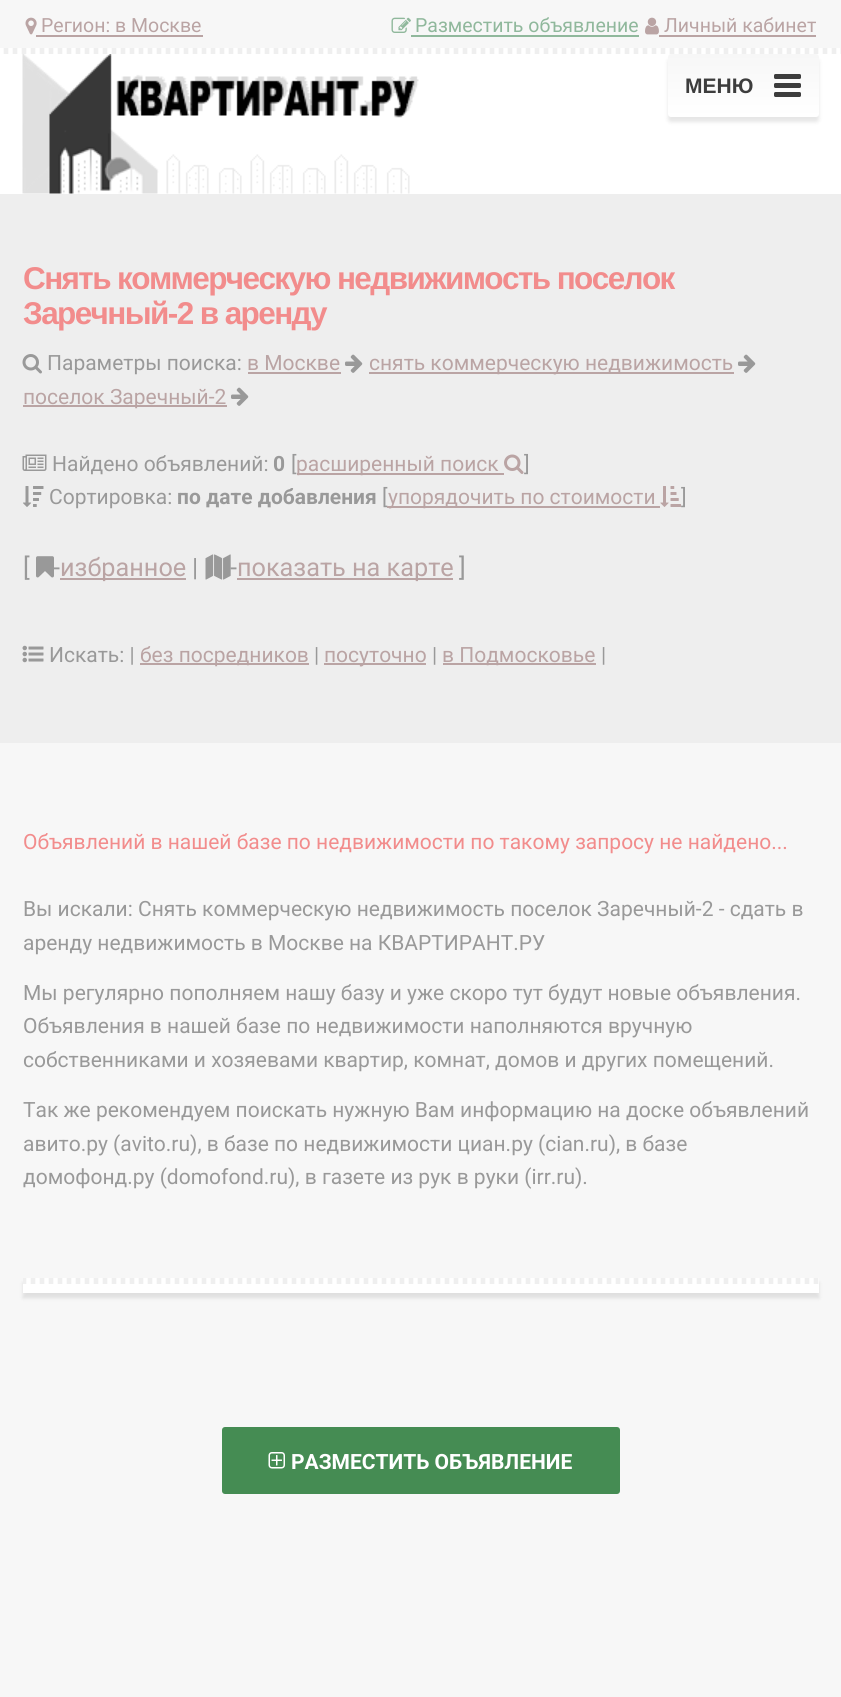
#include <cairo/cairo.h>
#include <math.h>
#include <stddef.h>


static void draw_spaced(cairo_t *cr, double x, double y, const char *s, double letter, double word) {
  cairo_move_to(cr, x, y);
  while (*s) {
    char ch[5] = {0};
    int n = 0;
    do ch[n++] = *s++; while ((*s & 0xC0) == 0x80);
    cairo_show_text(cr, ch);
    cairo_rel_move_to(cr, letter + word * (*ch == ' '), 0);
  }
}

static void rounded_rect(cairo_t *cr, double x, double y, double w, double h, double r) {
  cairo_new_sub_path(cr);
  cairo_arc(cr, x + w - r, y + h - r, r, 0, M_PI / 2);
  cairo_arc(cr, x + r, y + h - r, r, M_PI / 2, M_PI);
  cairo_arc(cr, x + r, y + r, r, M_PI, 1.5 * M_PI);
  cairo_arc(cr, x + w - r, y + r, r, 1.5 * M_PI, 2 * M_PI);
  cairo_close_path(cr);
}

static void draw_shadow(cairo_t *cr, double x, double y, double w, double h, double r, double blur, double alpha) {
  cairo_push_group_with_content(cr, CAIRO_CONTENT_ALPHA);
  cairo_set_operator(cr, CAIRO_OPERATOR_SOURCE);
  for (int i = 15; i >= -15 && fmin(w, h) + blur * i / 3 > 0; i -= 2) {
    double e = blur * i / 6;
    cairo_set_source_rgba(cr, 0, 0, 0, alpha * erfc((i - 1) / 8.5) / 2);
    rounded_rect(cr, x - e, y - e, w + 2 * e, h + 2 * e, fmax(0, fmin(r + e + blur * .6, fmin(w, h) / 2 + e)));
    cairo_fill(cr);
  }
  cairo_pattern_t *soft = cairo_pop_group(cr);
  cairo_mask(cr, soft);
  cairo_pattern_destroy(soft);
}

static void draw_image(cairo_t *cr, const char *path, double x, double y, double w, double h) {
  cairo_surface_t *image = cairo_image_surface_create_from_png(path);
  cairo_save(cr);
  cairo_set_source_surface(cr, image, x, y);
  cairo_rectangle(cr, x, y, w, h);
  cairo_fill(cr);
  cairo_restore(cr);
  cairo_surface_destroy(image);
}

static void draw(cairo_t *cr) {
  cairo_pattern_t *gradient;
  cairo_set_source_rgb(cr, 1, 1, 1);
  cairo_paint(cr);
  cairo_set_source_rgb(cr, 247 / 255.0, 247 / 255.0, 247 / 255.0);
  cairo_rectangle(cr, 0, 0, 841, 54);
  cairo_fill(cr);
  draw_image(cr, "images/1.png", 0, 48, 840, 6);
  draw_image(cr, "images/2.png", 25, 17, 12, 18);
  cairo_set_source_rgb(cr, 186 / 255.0, 164 / 255.0, 164 / 255.0);
  cairo_rectangle(cr, 36, 35, 167, 2);
  cairo_fill(cr);
  draw_image(cr, "images/3.png", 391, 17, 20, 16);
  cairo_set_source_rgb(cr, 144 / 255.0, 184 / 255.0, 156 / 255.0);
  cairo_rectangle(cr, 411, 35, 228, 2);
  cairo_fill(cr);
  draw_image(cr, "images/4.png", 645, 17, 14, 18);
  cairo_set_source_rgb(cr, 186 / 255.0, 164 / 255.0, 164 / 255.0);
  cairo_rectangle(cr, 659, 35, 157, 2);
  cairo_fill(cr);
  draw_image(cr, "images/5.png", 22, 54, 397, 140);
  cairo_set_source_rgb(cr, 0, 0, 0);
  draw_shadow(cr, 668, 59, 151, 63, 3, 2, 0.1);
  gradient = cairo_pattern_create_linear(743, 54, 743, 117);
  cairo_pattern_add_color_stop_rgba(gradient, 0, 247 / 255.0, 247 / 255.0, 247 / 255.0, 1);
  cairo_pattern_add_color_stop_rgba(gradient, 1, 1, 1, 1, 1);
  cairo_set_source(cr, gradient);
  cairo_pattern_destroy(gradient);
  rounded_rect(cr, 668, 54, 151, 63, 3);
  cairo_fill(cr);
  cairo_set_source_rgb(cr, 61 / 255.0, 61 / 255.0, 61 / 255.0);
  rounded_rect(cr, 774, 74, 27, 5, 1.5);
  cairo_fill(cr);
  rounded_rect(cr, 774, 83, 27, 5, 1.5);
  cairo_fill(cr);
  rounded_rect(cr, 774, 92, 27, 5, 1.5);
  cairo_fill(cr);
  cairo_set_source_rgb(cr, 238 / 255.0, 238 / 255.0, 238 / 255.0);
  cairo_rectangle(cr, 0, 194, 841, 549);
  cairo_fill(cr);
  draw_image(cr, "images/6.png", 22, 354, 20, 20);
  cairo_set_source_rgb(cr, 186 / 255.0, 164 / 255.0, 164 / 255.0);
  cairo_rectangle(cr, 248, 372, 93, 2);
  cairo_fill(cr);
  draw_image(cr, "images/7.png", 345, 354, 18, 19);
  cairo_rectangle(cr, 369, 372, 365, 2);
  cairo_fill(cr);
  draw_image(cr, "images/7.png", 738, 354, 18, 19);
  cairo_rectangle(cr, 23, 405, 204, 2);
  cairo_fill(cr);
  draw_image(cr, "images/7.png", 231, 387, 18, 19);
  draw_image(cr, "images/8.png", 22, 454, 25, 17);
  cairo_rectangle(cr, 297, 473, 207, 2);
  cairo_fill(cr);
  draw_image(cr, "images/9.png", 504, 454, 20, 20);
  draw_image(cr, "images/10.png", 23, 486, 21, 21);
  draw_image(cr, "images/11.png", 660, 486, 21, 21);
  draw_image(cr, "images/12.png", 36, 556, 18, 22);
  cairo_rectangle(cr, 60, 578, 126, 2);
  cairo_fill(cr);
  draw_image(cr, "images/13.png", 205, 554, 26, 26);
  cairo_rectangle(cr, 237, 578, 216, 2);
  cairo_fill(cr);
  draw_image(cr, "images/14.png", 22, 645, 22, 18);
  cairo_rectangle(cr, 140, 663, 169, 2);
  cairo_fill(cr);
  cairo_rectangle(cr, 324, 663, 102, 2);
  cairo_fill(cr);
  cairo_rectangle(cr, 443, 663, 153, 2);
  cairo_fill(cr);
  cairo_set_source_rgb(cr, 247 / 255.0, 247 / 255.0, 247 / 255.0);
  cairo_rectangle(cr, 0, 743, 841, 954);
  cairo_fill(cr);
  cairo_set_source_rgb(cr, 0, 0, 0);
  draw_shadow(cr, 23, 1283, 796, 15, 0, 2, 0.1);
  cairo_set_source_rgb(cr, 1, 1, 1);
  cairo_rectangle(cr, 23, 1284, 796, 9);
  cairo_fill(cr);
  draw_image(cr, "images/15.png", 23, 1278, 796, 6);
  cairo_set_source_rgb(cr, 69 / 255.0, 140 / 255.0, 83 / 255.0);
  rounded_rect(cr, 223, 1428, 396, 65, 2);
  cairo_fill_preserve(cr);
  cairo_stroke(cr);
  draw_image(cr, "images/16.png", 268, 1452, 17, 17);
  cairo_select_font_face(cr, "Roboto", CAIRO_FONT_SLANT_NORMAL, CAIRO_FONT_WEIGHT_NORMAL);
  cairo_set_font_size(cr, 19.5);
  cairo_set_source_rgb(cr, 186 / 255.0, 164 / 255.0, 164 / 255.0);
  cairo_move_to(cr, 41, 32);
  cairo_show_text(cr, "Регион: в Москве");
  cairo_set_source_rgb(cr, 144 / 255.0, 184 / 255.0, 156 / 255.0);
  cairo_move_to(cr, 415, 32);
  cairo_show_text(cr, "Разместить объявление");
  cairo_set_source_rgb(cr, 186 / 255.0, 164 / 255.0, 164 / 255.0);
  cairo_move_to(cr, 664, 32);
  cairo_show_text(cr, "Личный кабинет");
  cairo_select_font_face(cr, "Liberation Sans", CAIRO_FONT_SLANT_NORMAL, CAIRO_FONT_WEIGHT_BOLD);
  cairo_set_font_size(cr, 21);
  cairo_set_source_rgb(cr, 61 / 255.0, 61 / 255.0, 61 / 255.0);
  cairo_move_to(cr, 685, 93);
  cairo_show_text(cr, "МЕНЮ");
  cairo_set_font_size(cr, 31.5);
  cairo_set_source_rgb(cr, 242 / 255.0, 140 / 255.0, 140 / 255.0);
  draw_spaced(cr, 23, 289, "Снять коммерческую недвижимость поселок", -1.6, 0);
  draw_spaced(cr, 23, 324, "Заречный-2 в аренду", -1.6, 0);
  cairo_select_font_face(cr, "Roboto", CAIRO_FONT_SLANT_NORMAL, CAIRO_FONT_WEIGHT_NORMAL);
  cairo_set_font_size(cr, 21);
  cairo_set_source_rgb(cr, 153 / 255.0, 153 / 255.0, 153 / 255.0);
  cairo_move_to(cr, 47, 370);
  cairo_show_text(cr, "Параметры поиска:");
  cairo_set_source_rgb(cr, 186 / 255.0, 164 / 255.0, 164 / 255.0);
  cairo_move_to(cr, 247, 370);
  cairo_show_text(cr, "в Москве");
  cairo_move_to(cr, 369, 370);
  cairo_show_text(cr, "снять коммерческую недвижимость");
  cairo_move_to(cr, 23, 404);
  cairo_show_text(cr, "поселок Заречный-2");
  cairo_set_source_rgb(cr, 153 / 255.0, 153 / 255.0, 153 / 255.0);
  cairo_move_to(cr, 52, 471);
  cairo_show_text(cr, "Найдено объявлений:");
  cairo_select_font_face(cr, "Roboto", CAIRO_FONT_SLANT_NORMAL, CAIRO_FONT_WEIGHT_BOLD);
  cairo_move_to(cr, 273, 471);
  cairo_show_text(cr, "0");
  cairo_select_font_face(cr, "Roboto", CAIRO_FONT_SLANT_NORMAL, CAIRO_FONT_WEIGHT_NORMAL);
  cairo_move_to(cr, 291, 471);
  cairo_show_text(cr, "[");
  cairo_set_source_rgb(cr, 186 / 255.0, 164 / 255.0, 164 / 255.0);
  cairo_move_to(cr, 296, 471);
  cairo_show_text(cr, "расширенный поиск");
  cairo_set_source_rgb(cr, 153 / 255.0, 153 / 255.0, 153 / 255.0);
  cairo_move_to(cr, 524, 471);
  cairo_show_text(cr, "]");
  cairo_move_to(cr, 49, 504);
  cairo_show_text(cr, "Сортировка:");
  cairo_select_font_face(cr, "Roboto", CAIRO_FONT_SLANT_NORMAL, CAIRO_FONT_WEIGHT_BOLD);
  cairo_move_to(cr, 177, 504);
  cairo_show_text(cr, "по дате добавления");
  cairo_select_font_face(cr, "Roboto", CAIRO_FONT_SLANT_NORMAL, CAIRO_FONT_WEIGHT_NORMAL);
  cairo_move_to(cr, 382, 504);
  cairo_show_text(cr, "[");
  cairo_set_source_rgb(cr, 186 / 255.0, 164 / 255.0, 164 / 255.0);
  cairo_rectangle(cr, 387, 506, 273, 2);
  cairo_fill(cr);
  cairo_move_to(cr, 388, 504);
  cairo_show_text(cr, "упорядочить по стоимости");
  cairo_set_source_rgb(cr, 153 / 255.0, 153 / 255.0, 153 / 255.0);
  cairo_move_to(cr, 681, 504);
  cairo_show_text(cr, "]");
  cairo_set_font_size(cr, 25.25);
  cairo_move_to(cr, 23, 576);
  cairo_show_text(cr, "[");
  cairo_move_to(cr, 53, 576);
  cairo_show_text(cr, "-");
  cairo_set_source_rgb(cr, 186 / 255.0, 164 / 255.0, 164 / 255.0);
  cairo_move_to(cr, 60, 576);
  cairo_show_text(cr, "избранное");
  cairo_set_source_rgb(cr, 153 / 255.0, 153 / 255.0, 153 / 255.0);
  cairo_move_to(cr, 192, 576);
  cairo_show_text(cr, "|");
  cairo_move_to(cr, 230, 576);
  cairo_show_text(cr, "-");
  cairo_set_source_rgb(cr, 186 / 255.0, 164 / 255.0, 164 / 255.0);
  cairo_move_to(cr, 237, 576);
  cairo_show_text(cr, "показать на карте");
  cairo_set_source_rgb(cr, 153 / 255.0, 153 / 255.0, 153 / 255.0);
  cairo_move_to(cr, 459, 576);
  cairo_show_text(cr, "]");
  cairo_set_font_size(cr, 21);
  cairo_move_to(cr, 49, 662);
  cairo_show_text(cr, "Искать: |");
  cairo_set_source_rgb(cr, 186 / 255.0, 164 / 255.0, 164 / 255.0);
  cairo_move_to(cr, 140, 662);
  cairo_show_text(cr, "без посредников");
  cairo_set_source_rgb(cr, 153 / 255.0, 153 / 255.0, 153 / 255.0);
  cairo_move_to(cr, 314, 662);
  cairo_show_text(cr, "|");
  cairo_set_source_rgb(cr, 186 / 255.0, 164 / 255.0, 164 / 255.0);
  cairo_move_to(cr, 324, 662);
  cairo_show_text(cr, "посуточно");
  cairo_set_source_rgb(cr, 153 / 255.0, 153 / 255.0, 153 / 255.0);
  cairo_move_to(cr, 432, 662);
  cairo_show_text(cr, "|");
  cairo_set_source_rgb(cr, 186 / 255.0, 164 / 255.0, 164 / 255.0);
  cairo_move_to(cr, 442, 662);
  cairo_show_text(cr, "в Подмосковье");
  cairo_set_source_rgb(cr, 153 / 255.0, 153 / 255.0, 153 / 255.0);
  cairo_move_to(cr, 601, 662);
  cairo_show_text(cr, "|");
  cairo_set_source_rgb(cr, 242 / 255.0, 140 / 255.0, 140 / 255.0);
  cairo_move_to(cr, 23, 849);
  cairo_show_text(cr, "Объявлений в нашей базе по недвижимости по такому запросу не найдено...");
  cairo_set_source_rgb(cr, 153 / 255.0, 153 / 255.0, 153 / 255.0);
  cairo_move_to(cr, 23, 916);
  cairo_show_text(cr, "Вы искали: Снять коммерческую недвижимость поселок Заречный-2 - сдать в");
  cairo_move_to(cr, 23, 950);
  cairo_show_text(cr, "аренду недвижимость в Москве на КВАРТИРАНТ.РУ");
  cairo_move_to(cr, 23, 1000);
  cairo_show_text(cr, "Мы регулярно пополняем нашу базу и уже скоро тут будут новые объявления.");
  cairo_move_to(cr, 23, 1033);
  cairo_show_text(cr, "Объявления в нашей базе по недвижимости наполняются вручную");
  cairo_move_to(cr, 23, 1067);
  cairo_show_text(cr, "собственниками и хозяевами квартир, комнат, домов и других помещений.");
  cairo_move_to(cr, 23, 1117);
  cairo_show_text(cr, "Так же рекомендуем поискать нужную Вам информацию на доске объявлений");
  cairo_move_to(cr, 23, 1151);
  cairo_show_text(cr, "авито.ру (avito.ru), в базе по недвижимости циан.ру (cian.ru), в базе");
  cairo_move_to(cr, 23, 1184);
  cairo_show_text(cr, "домофонд.ру (domofond.ru), в газете из рук в руки (irr.ru).");
  cairo_select_font_face(cr, "Roboto", CAIRO_FONT_SLANT_NORMAL, CAIRO_FONT_WEIGHT_BOLD);
  cairo_set_source_rgb(cr, 1, 1, 1);
  cairo_move_to(cr, 291, 1469);
  cairo_show_text(cr, "РАЗМЕСТИТЬ ОБЪЯВЛЕНИЕ");
}

int main(void) {
  cairo_surface_t *surface = cairo_image_surface_create(CAIRO_FORMAT_RGB24, 841, 1697);
  cairo_t *cr = cairo_create(surface);
  cairo_font_options_t *options = cairo_font_options_create();
  cairo_font_options_set_hint_metrics(options, CAIRO_HINT_METRICS_OFF);
  cairo_font_options_set_hint_style(options, CAIRO_HINT_STYLE_NONE);
  cairo_set_font_options(cr, options);
  cairo_set_miter_limit(cr, 4);
  draw(cr);
  cairo_surface_write_to_png(surface, "out.png");
  cairo_font_options_destroy(options);
  cairo_destroy(cr);
  cairo_surface_destroy(surface);
  return 0;
}
